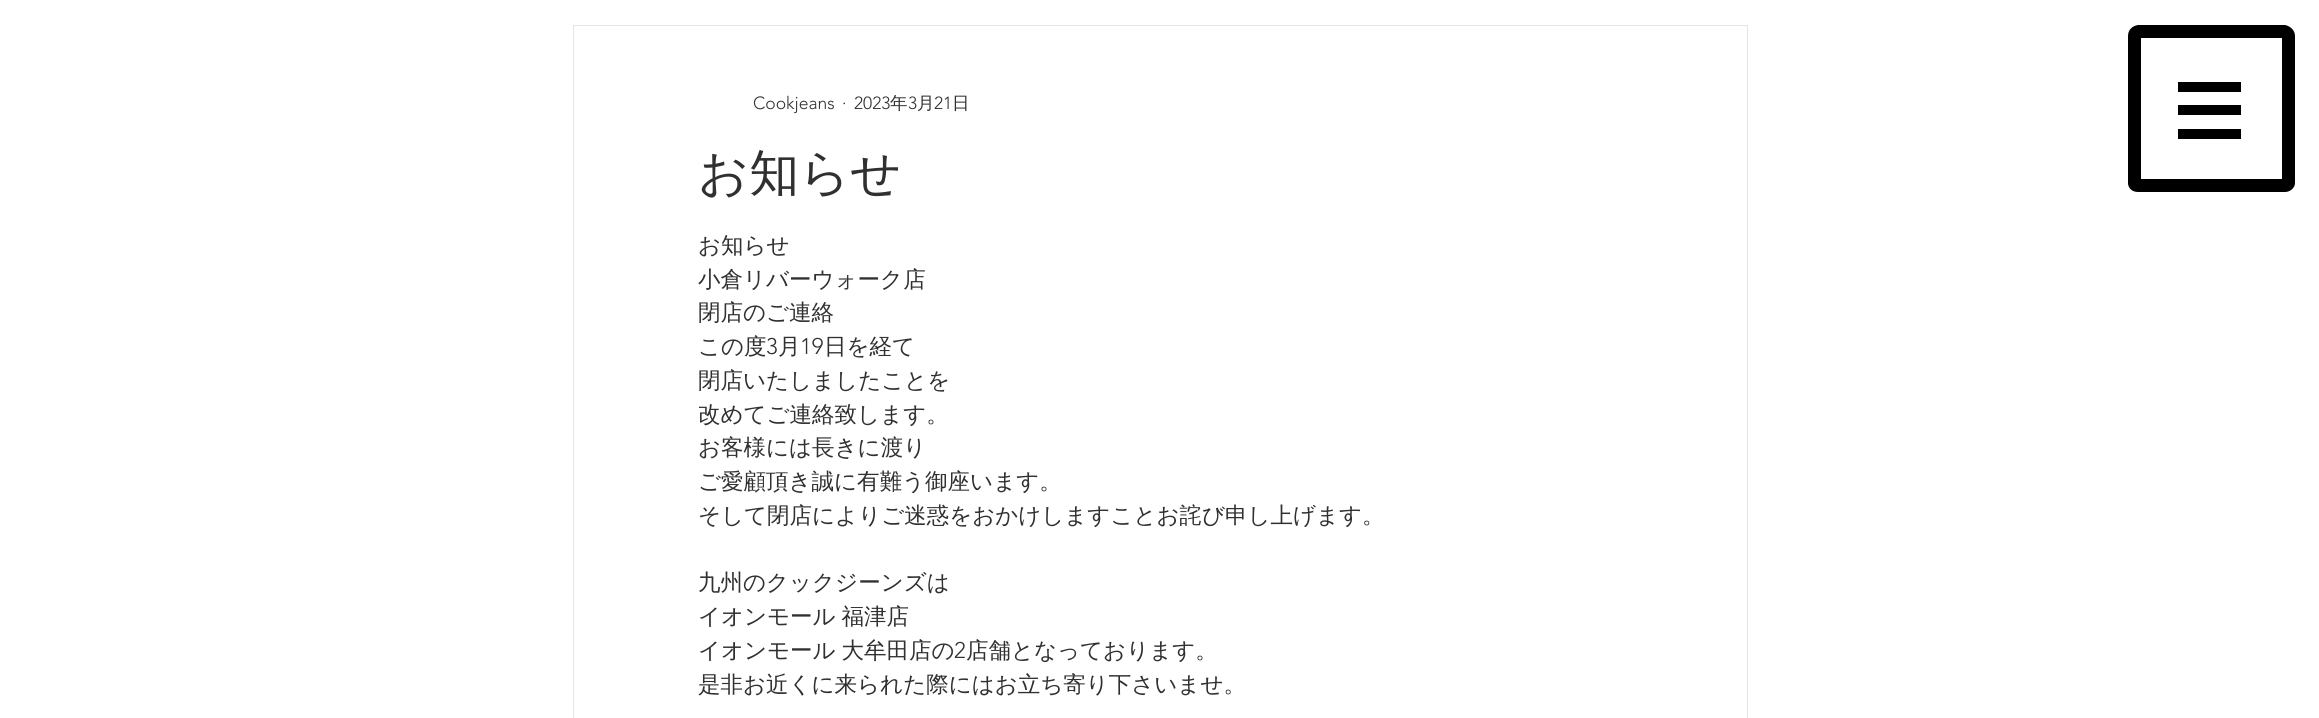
#include <cairo/cairo.h>
#include <math.h>
#include <stddef.h>


static void draw_spaced(cairo_t *cr, double x, double y, const char *s, double letter, double word) {
  cairo_move_to(cr, x, y);
  while (*s) {
    char ch[5] = {0};
    int n = 0;
    do ch[n++] = *s++; while ((*s & 0xC0) == 0x80);
    cairo_show_text(cr, ch);
    cairo_rel_move_to(cr, letter + word * (*ch == ' '), 0);
  }
}

static void draw(cairo_t *cr) {
  cairo_set_source_rgb(cr, 1, 1, 1);
  cairo_paint(cr);
  cairo_rectangle(cr, 573.5, 25.5, 1174, 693);
  cairo_set_source_rgb(cr, 228 / 255.0, 228 / 255.0, 228 / 255.0);
  cairo_set_line_width(cr, 1);
  cairo_stroke(cr);
  cairo_set_source_rgb(cr, 0, 0, 0);
  cairo_new_path(cr);
  cairo_move_to(cr, 2282, 38);
  cairo_line_to(cr, 2282, 179);
  cairo_line_to(cr, 2141, 179);
  cairo_line_to(cr, 2141, 38);
  cairo_line_to(cr, 2282, 38);
  cairo_move_to(cr, 2285, 25);
  cairo_line_to(cr, 2138, 25);
  cairo_curve_to(cr, 2132, 26, 2128, 30, 2128, 36);
  cairo_line_to(cr, 2128, 183);
  cairo_curve_to(cr, 2128, 188, 2132, 192, 2138, 192);
  cairo_line_to(cr, 2285, 192);
  cairo_curve_to(cr, 2290, 192, 2295, 188, 2295, 183);
  cairo_line_to(cr, 2295, 36);
  cairo_curve_to(cr, 2295, 30, 2290, 26, 2285, 25);
  cairo_close_path(cr);
  cairo_fill(cr);
  cairo_rectangle(cr, 2178, 129, 63, 10);
  cairo_fill(cr);
  cairo_rectangle(cr, 2178, 82, 63, 10);
  cairo_fill(cr);
  cairo_rectangle(cr, 2178, 105, 63, 10);
  cairo_fill(cr);
  cairo_select_font_face(cr, "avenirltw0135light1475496 Light", CAIRO_FONT_SLANT_NORMAL, CAIRO_FONT_WEIGHT_NORMAL);
  cairo_set_font_size(cr, 17.5);
  cairo_set_source_rgb(cr, 48 / 255.0, 48 / 255.0, 48 / 255.0);
  cairo_move_to(cr, 753, 109);
  cairo_show_text(cr, "Cookjeans");
  cairo_move_to(cr, 842, 109);
  cairo_show_text(cr, "·");
  cairo_move_to(cr, 854, 109);
  cairo_show_text(cr, "2023");
  cairo_select_font_face(cr, "WenQuanYi Zen Hei Medium", CAIRO_FONT_SLANT_NORMAL, CAIRO_FONT_WEIGHT_NORMAL);
  cairo_move_to(cr, 890, 109);
  cairo_show_text(cr, "年");
  cairo_select_font_face(cr, "avenirltw0135light1475496 Light", CAIRO_FONT_SLANT_NORMAL, CAIRO_FONT_WEIGHT_NORMAL);
  cairo_move_to(cr, 908, 109);
  cairo_show_text(cr, "3");
  cairo_select_font_face(cr, "WenQuanYi Zen Hei Medium", CAIRO_FONT_SLANT_NORMAL, CAIRO_FONT_WEIGHT_NORMAL);
  cairo_move_to(cr, 917, 109);
  cairo_show_text(cr, "月");
  cairo_select_font_face(cr, "avenirltw0135light1475496 Light", CAIRO_FONT_SLANT_NORMAL, CAIRO_FONT_WEIGHT_NORMAL);
  cairo_move_to(cr, 934, 109);
  cairo_show_text(cr, "21");
  cairo_select_font_face(cr, "WenQuanYi Zen Hei Medium", CAIRO_FONT_SLANT_NORMAL, CAIRO_FONT_WEIGHT_NORMAL);
  cairo_move_to(cr, 952, 109);
  cairo_show_text(cr, "日");
  cairo_set_font_size(cr, 50);
  cairo_move_to(cr, 698, 190);
  cairo_show_text(cr, "お知らせ");
  cairo_set_font_size(cr, 22.5);
  cairo_move_to(cr, 698, 253);
  cairo_show_text(cr, "お知らせ");
  cairo_move_to(cr, 698, 287);
  cairo_show_text(cr, "小倉リバーウォーク店");
  cairo_move_to(cr, 698, 320);
  cairo_show_text(cr, "閉店のご連絡");
  cairo_move_to(cr, 698, 354);
  cairo_show_text(cr, "この度");
  cairo_select_font_face(cr, "avenirltw0135light1475496 Light", CAIRO_FONT_SLANT_NORMAL, CAIRO_FONT_WEIGHT_NORMAL);
  cairo_move_to(cr, 766, 354);
  cairo_show_text(cr, "3");
  cairo_select_font_face(cr, "WenQuanYi Zen Hei Medium", CAIRO_FONT_SLANT_NORMAL, CAIRO_FONT_WEIGHT_NORMAL);
  cairo_move_to(cr, 778, 354);
  cairo_show_text(cr, "月");
  cairo_select_font_face(cr, "avenirltw0135light1475496 Light", CAIRO_FONT_SLANT_NORMAL, CAIRO_FONT_WEIGHT_NORMAL);
  cairo_move_to(cr, 800, 354);
  cairo_show_text(cr, "19");
  cairo_select_font_face(cr, "WenQuanYi Zen Hei Medium", CAIRO_FONT_SLANT_NORMAL, CAIRO_FONT_WEIGHT_NORMAL);
  cairo_move_to(cr, 824, 354);
  cairo_show_text(cr, "日を経て");
  cairo_move_to(cr, 698, 388);
  cairo_show_text(cr, "閉店いたしましたことを");
  cairo_move_to(cr, 698, 422);
  cairo_show_text(cr, "改めてご連絡致します。");
  cairo_move_to(cr, 698, 455);
  cairo_show_text(cr, "お客様には長きに渡り");
  cairo_move_to(cr, 698, 489);
  cairo_show_text(cr, "ご愛顧頂き誠に有難う御座います。");
  cairo_move_to(cr, 698, 523);
  cairo_show_text(cr, "そして閉店によりご迷惑をおかけしますことお詫び申し上げます。");
  cairo_move_to(cr, 698, 590);
  cairo_show_text(cr, "九州のクックジーンズは");
  draw_spaced(cr, 698, 624, "イオンモール 福津店", 0, -1);
  draw_spaced(cr, 698, 658, "イオンモール 大牟田店の", 0, -1);
  cairo_select_font_face(cr, "avenirltw0135light1475496 Light", CAIRO_FONT_SLANT_NORMAL, CAIRO_FONT_WEIGHT_NORMAL);
  cairo_move_to(cr, 954, 658);
  cairo_show_text(cr, "2");
  cairo_select_font_face(cr, "WenQuanYi Zen Hei Medium", CAIRO_FONT_SLANT_NORMAL, CAIRO_FONT_WEIGHT_NORMAL);
  cairo_move_to(cr, 966, 658);
  cairo_show_text(cr, "店舗となっております。");
  cairo_move_to(cr, 698, 692);
  cairo_show_text(cr, "是非お近くに来られた際にはお立ち寄り下さいませ。");
}

int main(void) {
  cairo_surface_t *surface = cairo_image_surface_create(CAIRO_FORMAT_RGB24, 2319, 718);
  cairo_t *cr = cairo_create(surface);
  cairo_font_options_t *options = cairo_font_options_create();
  cairo_font_options_set_hint_metrics(options, CAIRO_HINT_METRICS_OFF);
  cairo_font_options_set_hint_style(options, CAIRO_HINT_STYLE_NONE);
  cairo_set_font_options(cr, options);
  cairo_set_miter_limit(cr, 4);
  draw(cr);
  cairo_surface_write_to_png(surface, "out.png");
  cairo_font_options_destroy(options);
  cairo_destroy(cr);
  cairo_surface_destroy(surface);
  return 0;
}
